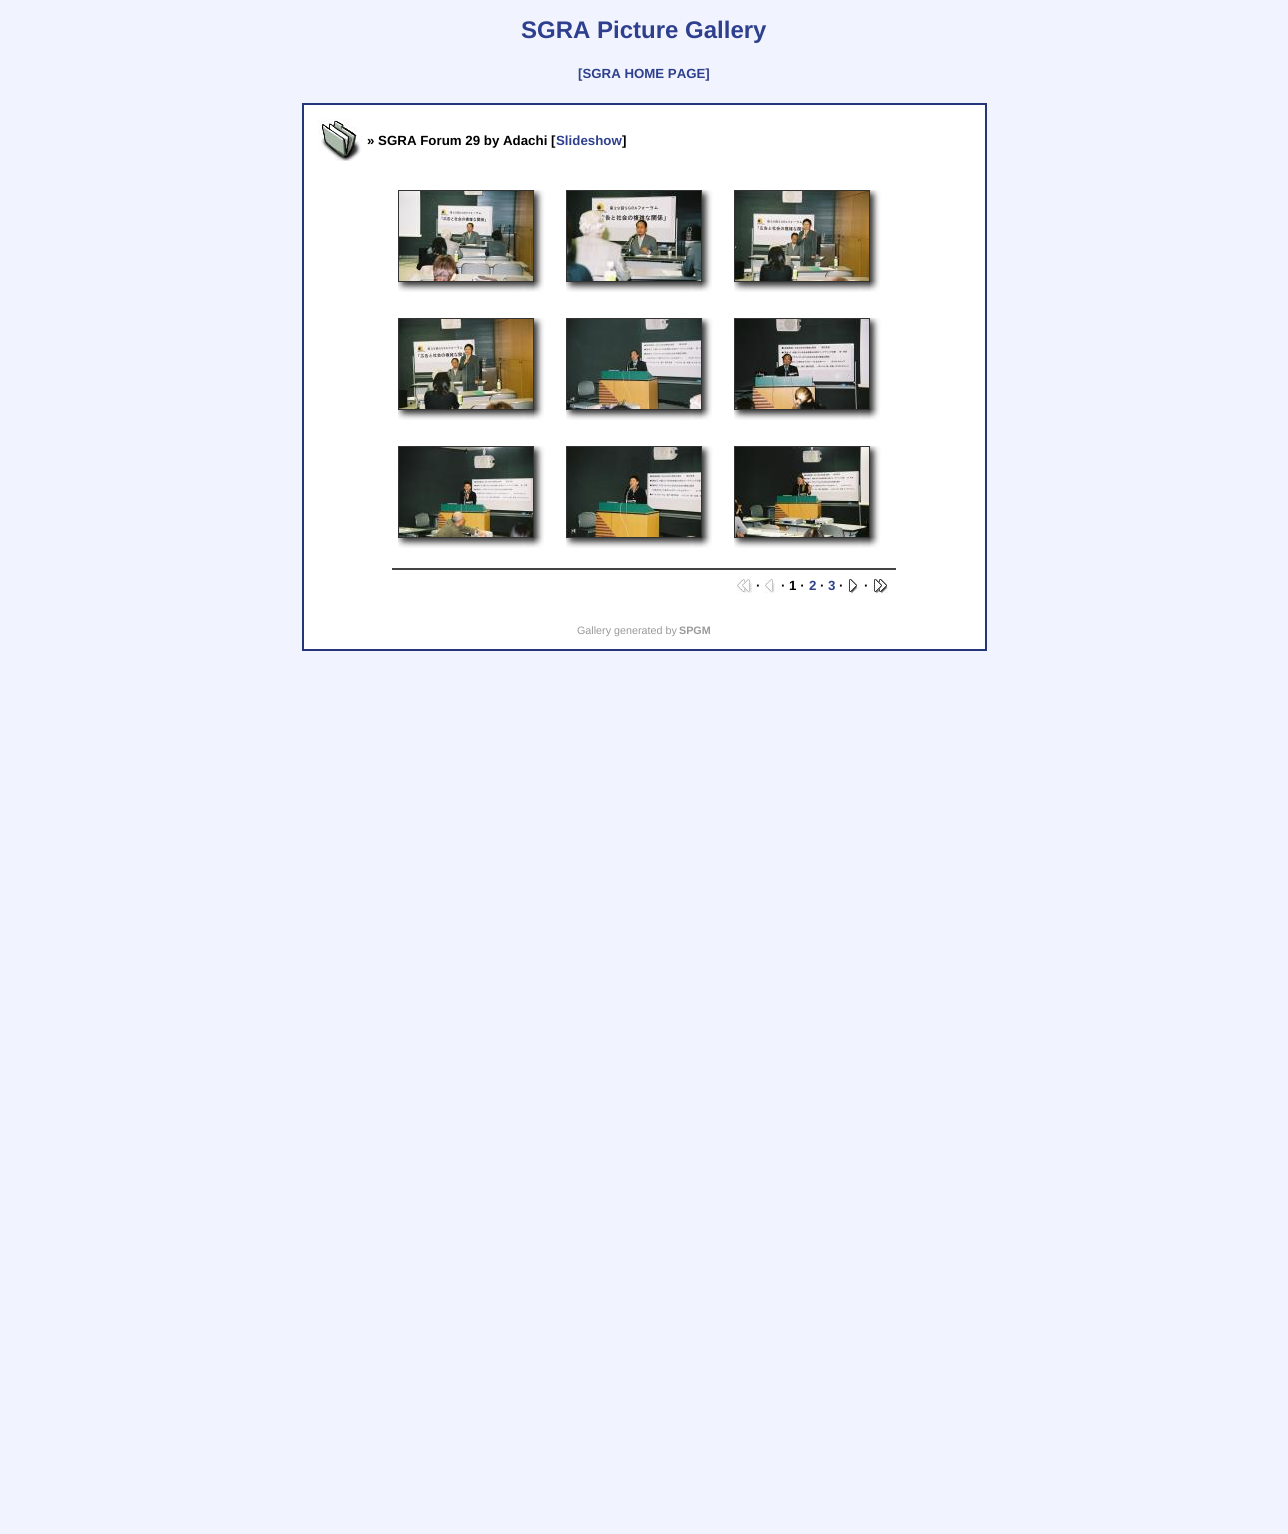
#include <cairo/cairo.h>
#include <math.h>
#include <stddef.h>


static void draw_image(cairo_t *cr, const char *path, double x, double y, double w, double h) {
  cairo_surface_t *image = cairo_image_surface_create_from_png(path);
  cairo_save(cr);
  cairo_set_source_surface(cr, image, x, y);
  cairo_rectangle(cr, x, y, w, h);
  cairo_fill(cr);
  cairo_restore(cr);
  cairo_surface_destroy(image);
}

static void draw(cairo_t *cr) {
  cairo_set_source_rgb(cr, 241 / 255.0, 244 / 255.0, 1);
  cairo_paint(cr);
  cairo_set_source_rgb(cr, 1, 1, 1);
  cairo_rectangle(cr, 303, 104, 683, 546);
  cairo_fill_preserve(cr);
  cairo_set_source_rgb(cr, 37 / 255.0, 53 / 255.0, 121 / 255.0);
  cairo_stroke(cr);
  draw_image(cr, "images/1.png", 318, 119, 44, 42);
  cairo_rectangle(cr, 398.5, 190.5, 135, 91);
  cairo_set_source_rgb(cr, 51 / 255.0, 51 / 255.0, 51 / 255.0);
  cairo_set_line_width(cr, 1);
  cairo_stroke(cr);
  draw_image(cr, "images/2.png", 399, 191, 134, 90);
  draw_image(cr, "images/3.png", 534, 190, 11, 92);
  draw_image(cr, "images/4.png", 398, 282, 136, 10);
  draw_image(cr, "images/5.png", 534, 282, 10, 10);
  cairo_rectangle(cr, 566.5, 190.5, 135, 91);
  cairo_stroke(cr);
  draw_image(cr, "images/6.png", 567, 191, 134, 90);
  draw_image(cr, "images/3.png", 702, 190, 11, 92);
  draw_image(cr, "images/4.png", 566, 282, 136, 10);
  draw_image(cr, "images/5.png", 702, 282, 10, 10);
  cairo_rectangle(cr, 734.5, 190.5, 135, 91);
  cairo_stroke(cr);
  draw_image(cr, "images/7.png", 735, 191, 134, 90);
  draw_image(cr, "images/3.png", 870, 190, 11, 92);
  draw_image(cr, "images/4.png", 734, 282, 136, 10);
  draw_image(cr, "images/5.png", 870, 282, 10, 10);
  cairo_rectangle(cr, 398.5, 318.5, 135, 91);
  cairo_stroke(cr);
  draw_image(cr, "images/8.png", 399, 319, 134, 90);
  draw_image(cr, "images/3.png", 534, 318, 11, 92);
  draw_image(cr, "images/4.png", 398, 410, 136, 10);
  draw_image(cr, "images/5.png", 534, 410, 10, 10);
  cairo_rectangle(cr, 566.5, 318.5, 135, 91);
  cairo_stroke(cr);
  draw_image(cr, "images/9.png", 567, 319, 134, 90);
  draw_image(cr, "images/3.png", 702, 318, 11, 92);
  draw_image(cr, "images/4.png", 566, 410, 136, 10);
  draw_image(cr, "images/5.png", 702, 410, 10, 10);
  cairo_rectangle(cr, 734.5, 318.5, 135, 91);
  cairo_stroke(cr);
  draw_image(cr, "images/10.png", 735, 319, 134, 90);
  draw_image(cr, "images/3.png", 870, 318, 11, 92);
  draw_image(cr, "images/4.png", 734, 410, 136, 10);
  draw_image(cr, "images/5.png", 870, 410, 10, 10);
  cairo_rectangle(cr, 398.5, 446.5, 135, 91);
  cairo_stroke(cr);
  draw_image(cr, "images/11.png", 399, 447, 134, 90);
  draw_image(cr, "images/3.png", 534, 446, 11, 92);
  draw_image(cr, "images/4.png", 398, 538, 136, 10);
  draw_image(cr, "images/5.png", 534, 538, 10, 10);
  cairo_rectangle(cr, 566.5, 446.5, 135, 91);
  cairo_stroke(cr);
  draw_image(cr, "images/12.png", 567, 447, 134, 90);
  draw_image(cr, "images/3.png", 702, 446, 11, 92);
  draw_image(cr, "images/4.png", 566, 538, 136, 10);
  draw_image(cr, "images/5.png", 702, 538, 10, 10);
  cairo_rectangle(cr, 734.5, 446.5, 135, 91);
  cairo_stroke(cr);
  draw_image(cr, "images/13.png", 735, 447, 134, 90);
  draw_image(cr, "images/3.png", 870, 446, 11, 92);
  draw_image(cr, "images/4.png", 734, 538, 136, 10);
  draw_image(cr, "images/5.png", 870, 538, 10, 10);
  cairo_set_source_rgb(cr, 68 / 255.0, 68 / 255.0, 68 / 255.0);
  cairo_rectangle(cr, 392, 568, 504, 2);
  cairo_fill(cr);
  draw_image(cr, "images/14.png", 737, 579, 16, 15);
  draw_image(cr, "images/15.png", 764, 579, 11, 15);
  draw_image(cr, "images/16.png", 847, 579, 13, 15);
  draw_image(cr, "images/17.png", 872, 579, 16, 15);
  cairo_select_font_face(cr, "Liberation Sans", CAIRO_FONT_SLANT_NORMAL, CAIRO_FONT_WEIGHT_BOLD);
  cairo_set_font_size(cr, 24);
  cairo_set_source_rgb(cr, 46 / 255.0, 64 / 255.0, 141 / 255.0);
  cairo_move_to(cr, 521, 38);
  cairo_show_text(cr, "SGRA Picture Gallery");
  cairo_set_font_size(cr, 13.25);
  cairo_move_to(cr, 578, 78);
  cairo_show_text(cr, "[SGRA HOME PAGE]");
  cairo_set_font_size(cr, 13.3);
  cairo_set_source_rgb(cr, 0, 0, 0);
  cairo_move_to(cr, 367, 145);
  cairo_show_text(cr, "» SGRA Forum 29 by Adachi [");
  cairo_set_source_rgb(cr, 46 / 255.0, 64 / 255.0, 141 / 255.0);
  cairo_move_to(cr, 556, 145);
  cairo_show_text(cr, "Slideshow");
  cairo_set_source_rgb(cr, 0, 0, 0);
  cairo_move_to(cr, 622, 145);
  cairo_show_text(cr, "]");
  cairo_move_to(cr, 756, 590);
  cairo_show_text(cr, "·");
  cairo_move_to(cr, 781, 590);
  cairo_show_text(cr, "· 1 ·");
  cairo_set_source_rgb(cr, 46 / 255.0, 64 / 255.0, 141 / 255.0);
  cairo_move_to(cr, 809, 590);
  cairo_show_text(cr, "2");
  cairo_set_source_rgb(cr, 0, 0, 0);
  cairo_move_to(cr, 820, 590);
  cairo_show_text(cr, "·");
  cairo_set_source_rgb(cr, 46 / 255.0, 64 / 255.0, 141 / 255.0);
  cairo_move_to(cr, 828, 590);
  cairo_show_text(cr, "3");
  cairo_set_source_rgb(cr, 0, 0, 0);
  cairo_move_to(cr, 839, 590);
  cairo_show_text(cr, "·");
  cairo_move_to(cr, 864, 590);
  cairo_show_text(cr, "·");
  cairo_select_font_face(cr, "Liberation Sans", CAIRO_FONT_SLANT_NORMAL, CAIRO_FONT_WEIGHT_NORMAL);
  cairo_set_font_size(cr, 10.75);
  cairo_set_source_rgb(cr, 153 / 255.0, 153 / 255.0, 153 / 255.0);
  cairo_move_to(cr, 577, 634);
  cairo_show_text(cr, "Gallery generated by");
  cairo_select_font_face(cr, "Liberation Sans", CAIRO_FONT_SLANT_NORMAL, CAIRO_FONT_WEIGHT_BOLD);
  cairo_move_to(cr, 679, 634);
  cairo_show_text(cr, "SPGM");
}

int main(void) {
  cairo_surface_t *surface = cairo_image_surface_create(CAIRO_FORMAT_RGB24, 1288, 1534);
  cairo_t *cr = cairo_create(surface);
  cairo_font_options_t *options = cairo_font_options_create();
  cairo_font_options_set_hint_metrics(options, CAIRO_HINT_METRICS_OFF);
  cairo_font_options_set_hint_style(options, CAIRO_HINT_STYLE_NONE);
  cairo_set_font_options(cr, options);
  cairo_set_miter_limit(cr, 4);
  draw(cr);
  cairo_surface_write_to_png(surface, "out.png");
  cairo_font_options_destroy(options);
  cairo_destroy(cr);
  cairo_surface_destroy(surface);
  return 0;
}
